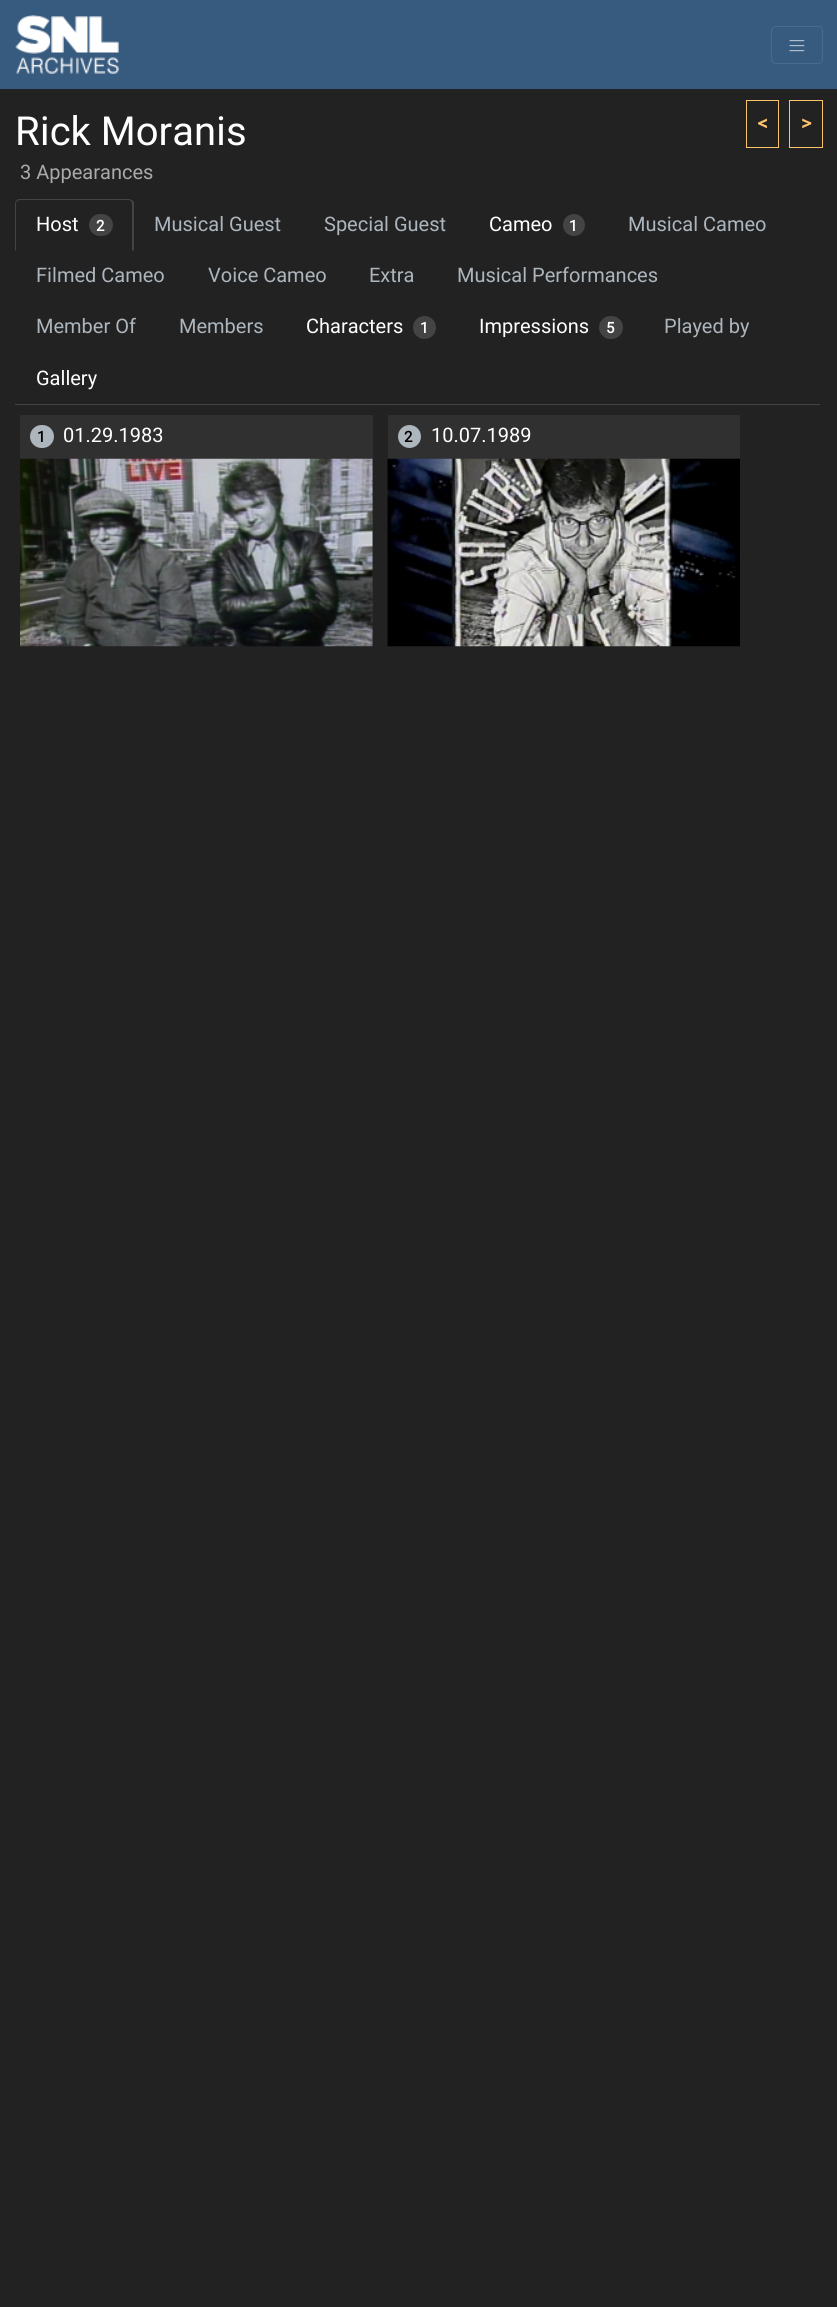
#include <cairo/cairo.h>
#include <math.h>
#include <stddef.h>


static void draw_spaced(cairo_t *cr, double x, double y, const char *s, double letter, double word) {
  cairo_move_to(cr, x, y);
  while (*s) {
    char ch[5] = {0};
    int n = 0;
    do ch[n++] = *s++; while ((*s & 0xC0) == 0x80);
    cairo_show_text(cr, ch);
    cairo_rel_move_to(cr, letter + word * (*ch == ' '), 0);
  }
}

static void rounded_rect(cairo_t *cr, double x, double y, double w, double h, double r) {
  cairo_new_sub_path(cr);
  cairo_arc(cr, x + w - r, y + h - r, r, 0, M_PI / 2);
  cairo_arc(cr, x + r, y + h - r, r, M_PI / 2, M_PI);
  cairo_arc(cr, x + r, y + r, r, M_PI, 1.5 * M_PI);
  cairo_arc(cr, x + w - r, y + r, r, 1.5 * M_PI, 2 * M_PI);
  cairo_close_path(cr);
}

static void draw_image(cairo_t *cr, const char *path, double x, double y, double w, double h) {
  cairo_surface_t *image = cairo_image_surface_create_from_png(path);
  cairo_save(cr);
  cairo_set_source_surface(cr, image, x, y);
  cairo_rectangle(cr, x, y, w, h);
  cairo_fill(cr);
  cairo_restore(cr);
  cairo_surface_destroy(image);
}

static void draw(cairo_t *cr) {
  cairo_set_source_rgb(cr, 34 / 255.0, 34 / 255.0, 34 / 255.0);
  cairo_paint(cr);
  cairo_set_source_rgb(cr, 55 / 255.0, 90 / 255.0, 127 / 255.0);
  cairo_rectangle(cr, 0, 0, 837, 89);
  cairo_fill(cr);
  draw_image(cr, "images/1.png", 15, 15, 104, 59);
  rounded_rect(cr, 771.5, 26.5, 51, 37, 4.5);
  cairo_set_source_rgb(cr, 75 / 255.0, 107 / 255.0, 140 / 255.0);
  cairo_set_line_width(cr, 1);
  cairo_stroke(cr);
  draw_image(cr, "images/2.png", 789, 40, 16, 12);
  cairo_rectangle(cr, 746.5, 100.5, 32, 47);
  cairo_set_source_rgb(cr, 252 / 255.0, 195 / 255.0, 109 / 255.0);
  cairo_stroke(cr);
  cairo_rectangle(cr, 789.5, 100.5, 33, 47);
  cairo_stroke(cr);
  cairo_set_source_rgb(cr, 68 / 255.0, 68 / 255.0, 68 / 255.0);
  cairo_rectangle(cr, 15, 404, 805, 1);
  cairo_fill(cr);
  cairo_new_path(cr);
  cairo_move_to(cr, 20, 199);
  cairo_curve_to(cr, 19, 199, 17, 199, 17, 200);
  cairo_line_to(cr, 17, 201);
  cairo_line_to(cr, 20, 200);
  cairo_line_to(cr, 129, 200);
  cairo_line_to(cr, 131, 201);
  cairo_line_to(cr, 132, 200);
  cairo_line_to(cr, 129, 199);
  cairo_close_path(cr);
  cairo_fill(cr);
  cairo_new_path(cr);
  cairo_move_to(cr, 132, 200);
  cairo_line_to(cr, 134, 202);
  cairo_line_to(cr, 134, 251);
  cairo_line_to(cr, 132, 250);
  cairo_line_to(cr, 132, 204);
  cairo_line_to(cr, 131, 201);
  cairo_close_path(cr);
  cairo_fill(cr);
  cairo_new_path(cr);
  cairo_move_to(cr, 15, 204);
  cairo_line_to(cr, 15, 251);
  cairo_line_to(cr, 16, 250);
  cairo_line_to(cr, 16, 203);
  cairo_line_to(cr, 17, 201);
  cairo_line_to(cr, 17, 200);
  cairo_curve_to(cr, 16, 201, 15, 202, 15, 204);
  cairo_close_path(cr);
  cairo_fill(cr);
  rounded_rect(cr, 89, 214, 24, 22, 11);
  cairo_fill(cr);
  cairo_arc(cr, 574, 225, 11, 0, 2 * M_PI);
  cairo_fill(cr);
  cairo_arc(cr, 424.5, 327.5, 11.5, 0, 2 * M_PI);
  cairo_fill(cr);
  rounded_rect(cr, 599, 316, 24, 23, 11.5);
  cairo_fill(cr);
  cairo_set_source_rgb(cr, 48 / 255.0, 48 / 255.0, 48 / 255.0);
  cairo_rectangle(cr, 20, 415, 353, 231);
  cairo_fill(cr);
  cairo_set_source_rgb(cr, 173 / 255.0, 181 / 255.0, 189 / 255.0);
  rounded_rect(cr, 30, 425, 24, 23, 11.5);
  cairo_fill(cr);
  draw_image(cr, "images/3.png", 20, 458, 353, 189);
  cairo_set_source_rgb(cr, 48 / 255.0, 48 / 255.0, 48 / 255.0);
  cairo_rectangle(cr, 388, 415, 352, 44);
  cairo_fill(cr);
  cairo_set_source_rgb(cr, 173 / 255.0, 181 / 255.0, 189 / 255.0);
  cairo_arc(cr, 409.5, 436.5, 11.5, 0, 2 * M_PI);
  cairo_fill(cr);
  draw_image(cr, "images/4.png", 387, 458, 353, 189);
  cairo_select_font_face(cr, "Heebo", CAIRO_FONT_SLANT_NORMAL, CAIRO_FONT_WEIGHT_NORMAL);
  cairo_set_font_size(cr, 40);
  cairo_set_source_rgb(cr, 1, 1, 1);
  cairo_move_to(cr, 15, 145);
  cairo_show_text(cr, "Rick Moranis");
  cairo_select_font_face(cr, "Heebo", CAIRO_FONT_SLANT_NORMAL, CAIRO_FONT_WEIGHT_BOLD);
  cairo_set_font_size(cr, 20);
  cairo_set_source_rgb(cr, 252 / 255.0, 195 / 255.0, 109 / 255.0);
  cairo_move_to(cr, 757, 130);
  cairo_show_text(cr, "<");
  cairo_move_to(cr, 801, 130);
  cairo_show_text(cr, ">");
  cairo_select_font_face(cr, "Heebo", CAIRO_FONT_SLANT_NORMAL, CAIRO_FONT_WEIGHT_NORMAL);
  cairo_set_source_rgb(cr, 170 / 255.0, 170 / 255.0, 170 / 255.0);
  cairo_move_to(cr, 20, 179);
  cairo_show_text(cr, "3 Appearances");
  cairo_set_source_rgb(cr, 1, 1, 1);
  cairo_move_to(cr, 36, 231);
  cairo_show_text(cr, "Host");
  cairo_select_font_face(cr, "Heebo", CAIRO_FONT_SLANT_NORMAL, CAIRO_FONT_WEIGHT_BOLD);
  cairo_set_font_size(cr, 15);
  draw_spaced(cr, 96, 231, "2", 1, 0);
  cairo_select_font_face(cr, "Heebo", CAIRO_FONT_SLANT_NORMAL, CAIRO_FONT_WEIGHT_NORMAL);
  cairo_set_font_size(cr, 20);
  cairo_set_source_rgb(cr, 173 / 255.0, 181 / 255.0, 189 / 255.0);
  cairo_move_to(cr, 154, 231);
  cairo_show_text(cr, "Musical Guest");
  cairo_move_to(cr, 324, 231);
  cairo_show_text(cr, "Special Guest");
  cairo_set_source_rgb(cr, 1, 1, 1);
  cairo_move_to(cr, 489, 231);
  cairo_show_text(cr, "Cameo");
  cairo_select_font_face(cr, "Heebo", CAIRO_FONT_SLANT_NORMAL, CAIRO_FONT_WEIGHT_BOLD);
  cairo_set_font_size(cr, 15);
  draw_spaced(cr, 569, 231, "1", 1, 0);
  cairo_select_font_face(cr, "Heebo", CAIRO_FONT_SLANT_NORMAL, CAIRO_FONT_WEIGHT_NORMAL);
  cairo_set_font_size(cr, 20);
  cairo_set_source_rgb(cr, 173 / 255.0, 181 / 255.0, 189 / 255.0);
  cairo_move_to(cr, 628, 231);
  cairo_show_text(cr, "Musical Cameo");
  cairo_move_to(cr, 36, 282);
  cairo_show_text(cr, "Filmed Cameo");
  cairo_move_to(cr, 208, 282);
  cairo_show_text(cr, "Voice Cameo");
  cairo_move_to(cr, 369, 282);
  cairo_show_text(cr, "Extra");
  cairo_move_to(cr, 457, 282);
  cairo_show_text(cr, "Musical Performances");
  cairo_move_to(cr, 36, 333);
  cairo_show_text(cr, "Member Of");
  cairo_move_to(cr, 179, 333);
  cairo_show_text(cr, "Members");
  cairo_set_source_rgb(cr, 1, 1, 1);
  cairo_move_to(cr, 306, 333);
  cairo_show_text(cr, "Characters");
  cairo_select_font_face(cr, "Heebo", CAIRO_FONT_SLANT_NORMAL, CAIRO_FONT_WEIGHT_BOLD);
  cairo_set_font_size(cr, 15);
  draw_spaced(cr, 420, 333, "1", 1, 0);
  cairo_select_font_face(cr, "Heebo", CAIRO_FONT_SLANT_NORMAL, CAIRO_FONT_WEIGHT_NORMAL);
  cairo_set_font_size(cr, 20);
  cairo_move_to(cr, 479, 333);
  cairo_show_text(cr, "Impressions");
  cairo_select_font_face(cr, "Heebo", CAIRO_FONT_SLANT_NORMAL, CAIRO_FONT_WEIGHT_BOLD);
  cairo_set_font_size(cr, 15);
  draw_spaced(cr, 606, 333, "5", 1, 0);
  cairo_select_font_face(cr, "Heebo", CAIRO_FONT_SLANT_NORMAL, CAIRO_FONT_WEIGHT_NORMAL);
  cairo_set_font_size(cr, 20);
  cairo_set_source_rgb(cr, 173 / 255.0, 181 / 255.0, 189 / 255.0);
  cairo_move_to(cr, 664, 333);
  cairo_show_text(cr, "Played by");
  cairo_set_source_rgb(cr, 1, 1, 1);
  cairo_move_to(cr, 36, 385);
  cairo_show_text(cr, "Gallery");
  cairo_select_font_face(cr, "Heebo", CAIRO_FONT_SLANT_NORMAL, CAIRO_FONT_WEIGHT_BOLD);
  cairo_set_font_size(cr, 15);
  cairo_set_source_rgb(cr, 0, 0, 0);
  draw_spaced(cr, 37, 442, "1", 1, 0);
  cairo_select_font_face(cr, "Heebo", CAIRO_FONT_SLANT_NORMAL, CAIRO_FONT_WEIGHT_NORMAL);
  cairo_set_font_size(cr, 20);
  cairo_set_source_rgb(cr, 1, 1, 1);
  cairo_move_to(cr, 63, 442);
  cairo_show_text(cr, "01.29.1983");
  cairo_select_font_face(cr, "Heebo", CAIRO_FONT_SLANT_NORMAL, CAIRO_FONT_WEIGHT_BOLD);
  cairo_set_font_size(cr, 15);
  cairo_set_source_rgb(cr, 0, 0, 0);
  draw_spaced(cr, 404, 442, "2", 1, 0);
  cairo_select_font_face(cr, "Heebo", CAIRO_FONT_SLANT_NORMAL, CAIRO_FONT_WEIGHT_NORMAL);
  cairo_set_font_size(cr, 20);
  cairo_set_source_rgb(cr, 1, 1, 1);
  cairo_move_to(cr, 431, 442);
  cairo_show_text(cr, "10.07.1989");
}

int main(void) {
  cairo_surface_t *surface = cairo_image_surface_create(CAIRO_FORMAT_RGB24, 837, 2307);
  cairo_t *cr = cairo_create(surface);
  cairo_font_options_t *options = cairo_font_options_create();
  cairo_font_options_set_hint_metrics(options, CAIRO_HINT_METRICS_OFF);
  cairo_font_options_set_hint_style(options, CAIRO_HINT_STYLE_NONE);
  cairo_set_font_options(cr, options);
  cairo_set_miter_limit(cr, 4);
  draw(cr);
  cairo_surface_write_to_png(surface, "out.png");
  cairo_font_options_destroy(options);
  cairo_destroy(cr);
  cairo_surface_destroy(surface);
  return 0;
}
